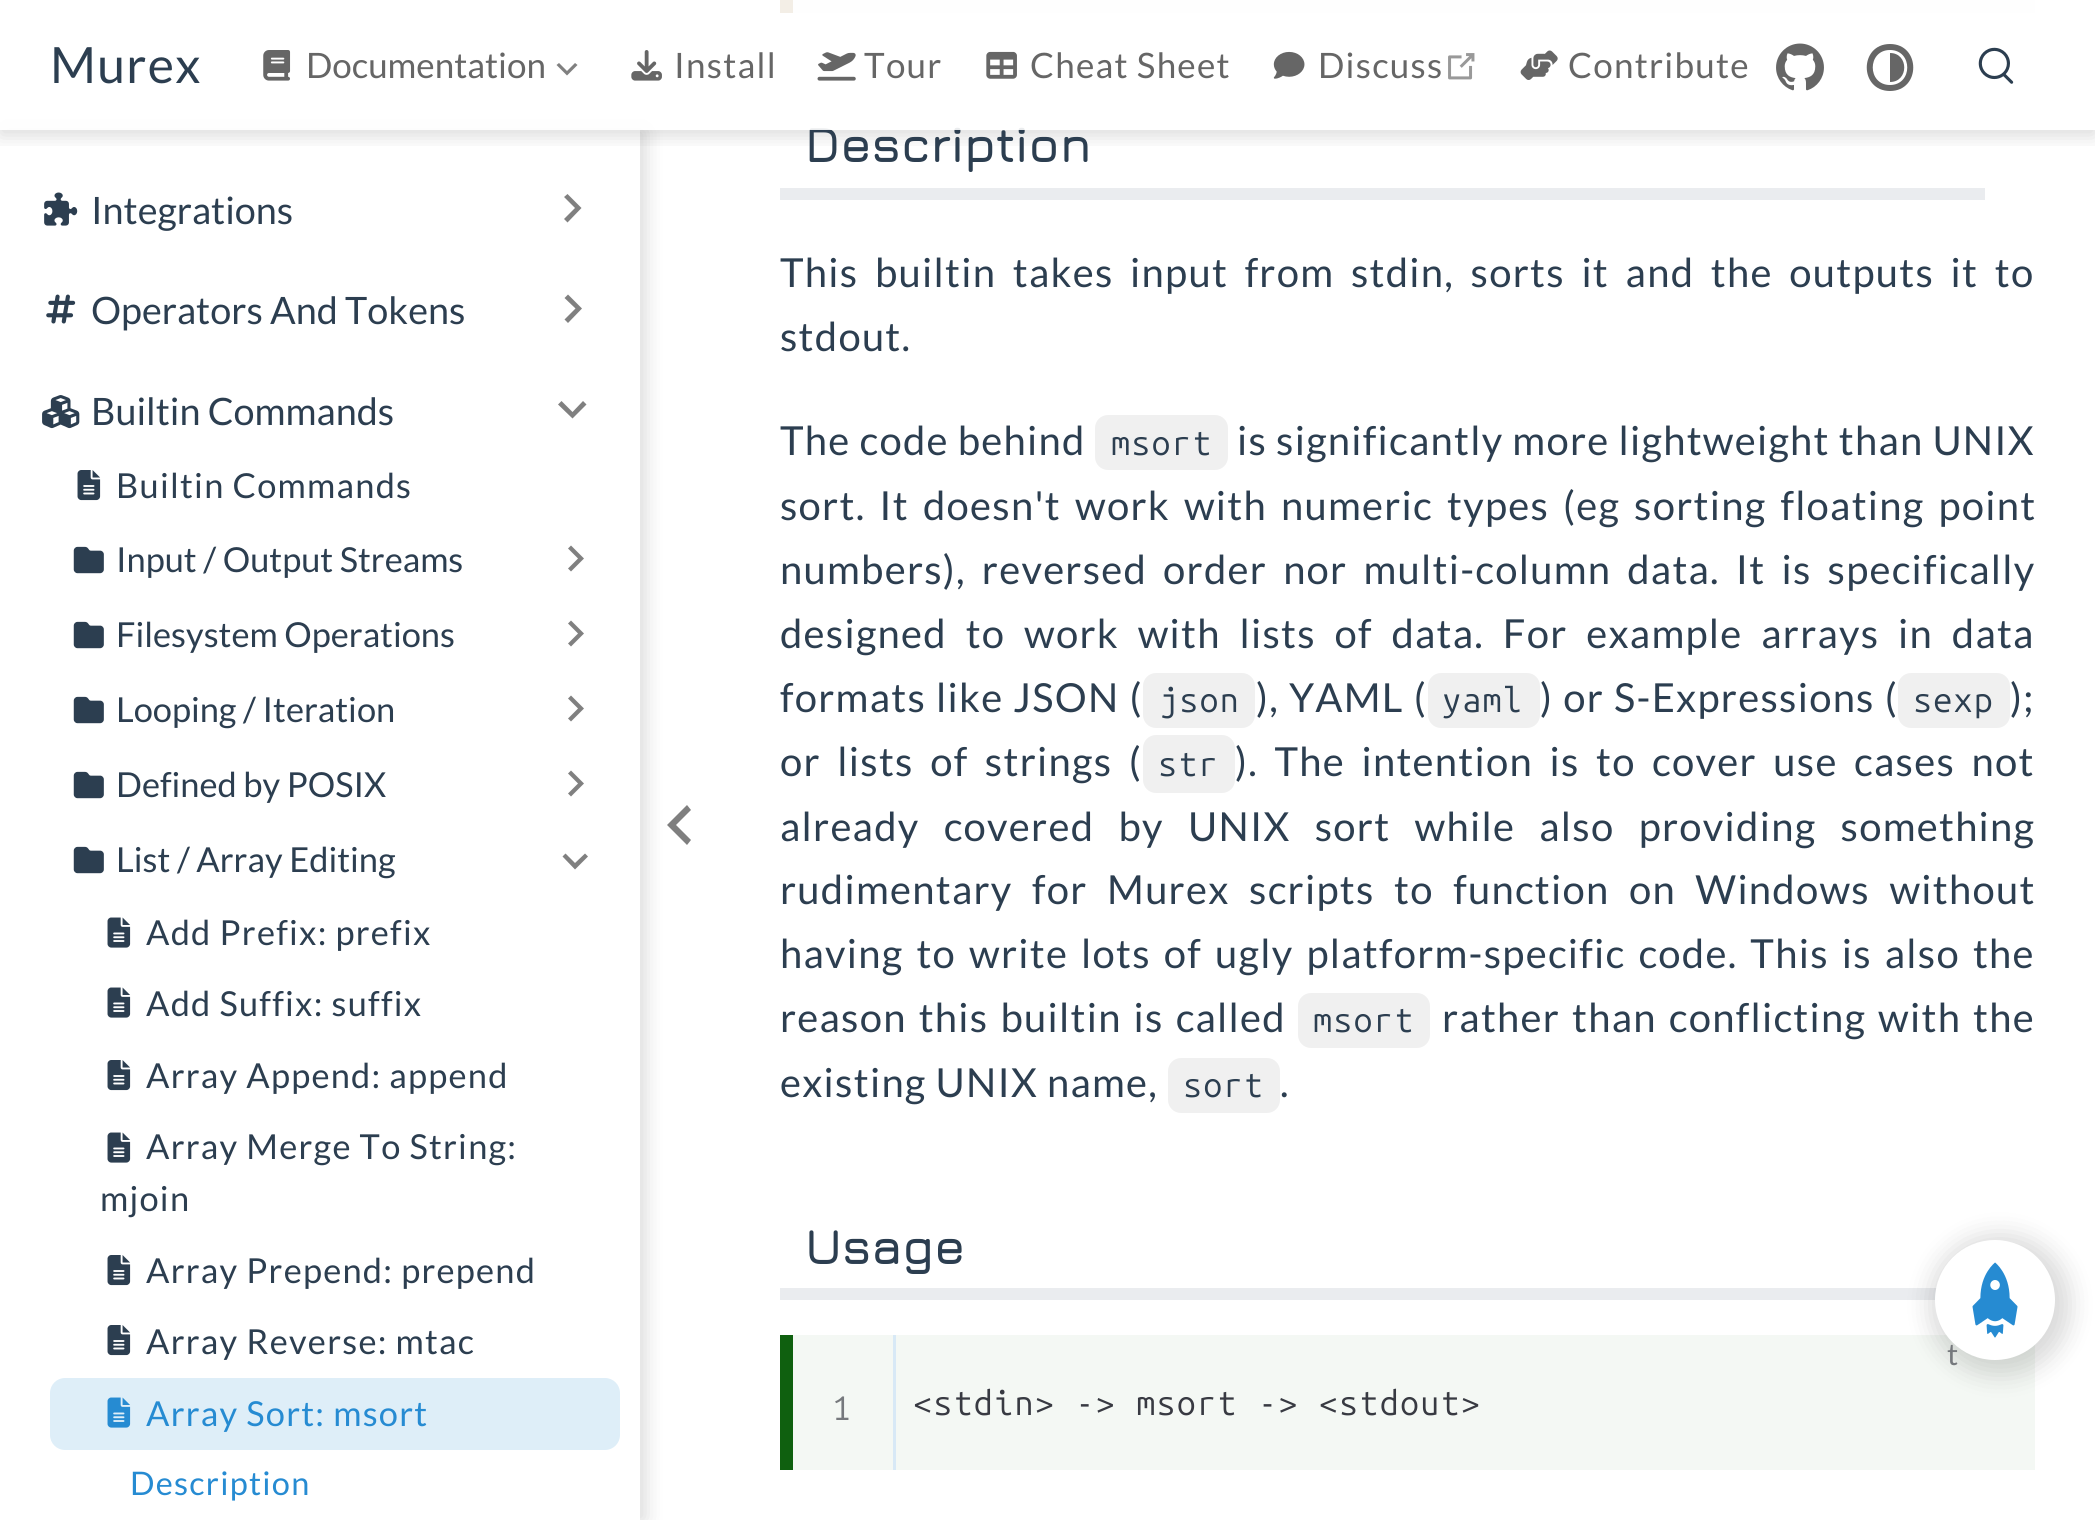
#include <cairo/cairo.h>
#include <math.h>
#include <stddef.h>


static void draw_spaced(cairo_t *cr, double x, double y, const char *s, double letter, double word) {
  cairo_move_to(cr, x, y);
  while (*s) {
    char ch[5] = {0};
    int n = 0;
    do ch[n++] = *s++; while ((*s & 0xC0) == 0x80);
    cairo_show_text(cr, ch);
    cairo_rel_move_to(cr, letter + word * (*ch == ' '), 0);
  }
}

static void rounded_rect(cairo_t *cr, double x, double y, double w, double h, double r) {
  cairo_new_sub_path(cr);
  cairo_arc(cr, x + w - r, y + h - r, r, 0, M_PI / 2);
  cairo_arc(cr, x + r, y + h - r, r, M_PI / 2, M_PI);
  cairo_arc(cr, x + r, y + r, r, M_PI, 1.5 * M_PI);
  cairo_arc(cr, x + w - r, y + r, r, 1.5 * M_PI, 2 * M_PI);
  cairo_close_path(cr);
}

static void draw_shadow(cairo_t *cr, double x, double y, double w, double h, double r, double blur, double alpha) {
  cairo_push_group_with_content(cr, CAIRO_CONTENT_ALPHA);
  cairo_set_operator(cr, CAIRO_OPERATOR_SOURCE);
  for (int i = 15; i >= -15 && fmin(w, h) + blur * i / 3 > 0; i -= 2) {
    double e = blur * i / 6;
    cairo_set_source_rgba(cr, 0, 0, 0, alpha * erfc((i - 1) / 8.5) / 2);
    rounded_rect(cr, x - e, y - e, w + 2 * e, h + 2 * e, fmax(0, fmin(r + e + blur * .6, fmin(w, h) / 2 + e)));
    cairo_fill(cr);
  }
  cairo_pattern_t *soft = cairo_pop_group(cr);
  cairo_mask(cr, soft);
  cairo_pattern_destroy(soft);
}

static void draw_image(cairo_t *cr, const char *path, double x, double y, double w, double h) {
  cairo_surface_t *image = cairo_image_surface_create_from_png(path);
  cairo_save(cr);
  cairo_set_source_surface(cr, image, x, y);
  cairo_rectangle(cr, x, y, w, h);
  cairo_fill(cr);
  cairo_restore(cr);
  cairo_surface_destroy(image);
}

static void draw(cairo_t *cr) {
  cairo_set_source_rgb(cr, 1, 1, 1);
  cairo_paint(cr);
  cairo_set_source_rgb(cr, 249 / 255.0, 247 / 255.0, 242 / 255.0);
  cairo_rectangle(cr, 793, 0, 1242, 13);
  cairo_fill(cr);
  cairo_set_source_rgb(cr, 136 / 255.0, 85 / 255.0, 0);
  cairo_rectangle(cr, 780, 0, 13, 13);
  cairo_fill(cr);
  cairo_save(cr);
  cairo_rectangle(cr, 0, 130, 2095, 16);
  cairo_clip(cr);
  cairo_set_source_rgb(cr, 0, 0, 0);
  draw_shadow(cr, 0, 5, 2095, 130, 0, 10, 0.15);
  cairo_restore(cr);
  cairo_save(cr);
  cairo_set_fill_rule(cr, CAIRO_FILL_RULE_EVEN_ODD);
  cairo_new_path(cr);
  cairo_move_to(cr, 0, 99);
  cairo_line_to(cr, 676, 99);
  cairo_line_to(cr, 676, 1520);
  cairo_line_to(cr, 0, 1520);
  cairo_close_path(cr);
  cairo_move_to(cr, 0, 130);
  cairo_line_to(cr, 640, 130);
  cairo_line_to(cr, 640, 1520);
  cairo_line_to(cr, 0, 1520);
  cairo_close_path(cr);
  cairo_clip(cr);
  cairo_set_source_rgb(cr, 0, 0, 0);
  draw_shadow(cr, 5, 130, 640, 1390, 0, 10, 0.15);
  cairo_restore(cr);
  draw_image(cr, "images/10.png", 44, 192, 34, 34);
  cairo_set_source_rgb(cr, 128 / 255.0, 128 / 255.0, 128 / 255.0);
  cairo_new_path(cr);
  cairo_move_to(cr, 564, 197);
  cairo_line_to(cr, 575, 208);
  cairo_line_to(cr, 564, 219);
  cairo_line_to(cr, 567.5, 222.5);
  cairo_line_to(cr, 581.5, 208);
  cairo_line_to(cr, 567.5, 194);
  cairo_close_path(cr);
  cairo_fill(cr);
  draw_image(cr, "images/11.png", 46, 294, 30, 30);
  cairo_new_path(cr);
  cairo_move_to(cr, 564.5, 298);
  cairo_line_to(cr, 575.5, 308.5);
  cairo_line_to(cr, 564.5, 319.5);
  cairo_line_to(cr, 568, 323);
  cairo_line_to(cr, 582, 308.5);
  cairo_line_to(cr, 568, 294.5);
  cairo_close_path(cr);
  cairo_fill(cr);
  draw_image(cr, "images/12.png", 42, 395, 38, 34);
  cairo_new_path(cr);
  cairo_move_to(cr, 583, 401);
  cairo_line_to(cr, 572.5, 412);
  cairo_line_to(cr, 561.5, 401);
  cairo_line_to(cr, 558, 404.5);
  cairo_line_to(cr, 572.5, 418.5);
  cairo_line_to(cr, 586.5, 404.5);
  cairo_close_path(cr);
  cairo_fill(cr);
  draw_image(cr, "images/13.png", 77, 470, 24, 31);
  draw_image(cr, "images/14.png", 73, 546, 31, 28);
  cairo_new_path(cr);
  cairo_move_to(cr, 568, 548.5);
  cairo_line_to(cr, 578, 558.5);
  cairo_line_to(cr, 568, 568.5);
  cairo_line_to(cr, 571, 571.5);
  cairo_line_to(cr, 584, 558.5);
  cairo_line_to(cr, 571, 545.5);
  cairo_close_path(cr);
  cairo_fill(cr);
  draw_image(cr, "images/14.png", 73, 621, 31, 28);
  cairo_new_path(cr);
  cairo_move_to(cr, 568, 623.5);
  cairo_line_to(cr, 578, 633.5);
  cairo_line_to(cr, 568, 643.5);
  cairo_line_to(cr, 571, 646.5);
  cairo_line_to(cr, 584, 633.5);
  cairo_line_to(cr, 571, 620.5);
  cairo_close_path(cr);
  cairo_fill(cr);
  draw_image(cr, "images/14.png", 73, 696, 31, 28);
  cairo_new_path(cr);
  cairo_move_to(cr, 568, 698.5);
  cairo_line_to(cr, 578, 708.5);
  cairo_line_to(cr, 568, 718.5);
  cairo_line_to(cr, 571, 721.5);
  cairo_line_to(cr, 584, 708.5);
  cairo_line_to(cr, 571, 695.5);
  cairo_close_path(cr);
  cairo_fill(cr);
  draw_image(cr, "images/14.png", 73, 771, 31, 28);
  cairo_new_path(cr);
  cairo_move_to(cr, 568, 773.5);
  cairo_line_to(cr, 578, 783.5);
  cairo_line_to(cr, 568, 793.5);
  cairo_line_to(cr, 571, 796.5);
  cairo_line_to(cr, 584, 783.5);
  cairo_line_to(cr, 571, 770.5);
  cairo_close_path(cr);
  cairo_fill(cr);
  draw_image(cr, "images/14.png", 73, 846, 31, 28);
  cairo_new_path(cr);
  cairo_move_to(cr, 585, 853.5);
  cairo_line_to(cr, 575, 863);
  cairo_line_to(cr, 565.5, 853.5);
  cairo_line_to(cr, 562.5, 856.5);
  cairo_line_to(cr, 575, 869.5);
  cairo_line_to(cr, 588, 856.5);
  cairo_close_path(cr);
  cairo_fill(cr);
  draw_image(cr, "images/15.png", 107, 917, 24, 31);
  draw_image(cr, "images/15.png", 107, 987, 24, 31);
  draw_image(cr, "images/13.png", 107, 1060, 24, 31);
  draw_image(cr, "images/15.png", 107, 1132, 24, 31);
  draw_image(cr, "images/13.png", 107, 1255, 24, 31);
  draw_image(cr, "images/13.png", 107, 1325, 24, 31);
  cairo_set_source_rgb(cr, 222 / 255.0, 238 / 255.0, 248 / 255.0);
  rounded_rect(cr, 50, 1378, 570, 72, 15);
  cairo_fill(cr);
  draw_image(cr, "images/16.png", 107, 1397, 24, 31);
  cairo_set_source_rgb(cr, 127 / 255.0, 127 / 255.0, 127 / 255.0);
  cairo_new_path(cr);
  cairo_move_to(cr, 691, 840);
  cairo_line_to(cr, 676, 825);
  cairo_line_to(cr, 691, 810);
  cairo_line_to(cr, 687, 805);
  cairo_line_to(cr, 667, 825);
  cairo_line_to(cr, 687, 845);
  cairo_close_path(cr);
  cairo_fill(cr);
  cairo_set_source_rgb(cr, 234 / 255.0, 236 / 255.0, 239 / 255.0);
  cairo_rectangle(cr, 780, 188, 1205, 12);
  cairo_fill(cr);
  cairo_set_source_rgb(cr, 240 / 255.0, 240 / 255.0, 240 / 255.0);
  rounded_rect(cr, 1095, 415, 133, 55, 13);
  cairo_fill(cr);
  rounded_rect(cr, 1143, 673, 112, 55, 13);
  cairo_fill(cr);
  rounded_rect(cr, 1428, 673, 112, 55, 13);
  cairo_fill(cr);
  rounded_rect(cr, 1898, 673, 112, 55, 13);
  cairo_fill(cr);
  rounded_rect(cr, 1143, 735, 92, 58, 13);
  cairo_fill(cr);
  rounded_rect(cr, 1298, 993, 132, 55, 13);
  cairo_fill(cr);
  rounded_rect(cr, 1168, 1058, 112, 55, 13);
  cairo_fill(cr);
  cairo_set_source_rgb(cr, 234 / 255.0, 236 / 255.0, 239 / 255.0);
  cairo_rectangle(cr, 780, 1288, 1157, 12);
  cairo_fill(cr);
  cairo_set_source_rgb(cr, 244 / 255.0, 248 / 255.0, 244 / 255.0);
  cairo_rectangle(cr, 793, 1335, 1242, 135);
  cairo_fill(cr);
  cairo_set_source_rgb(cr, 15 / 255.0, 96 / 255.0, 15 / 255.0);
  cairo_rectangle(cr, 780, 1335, 13, 135);
  cairo_fill(cr);
  cairo_set_source_rgb(cr, 216 / 255.0, 233 / 255.0, 246 / 255.0);
  cairo_rectangle(cr, 893, 1335, 3, 135);
  cairo_fill(cr);
  cairo_set_source_rgb(cr, 0, 0, 0);
  draw_shadow(cr, 1930, 1235, 140, 140, 70, 12.5, 0.15);
  cairo_select_font_face(cr, "Lato", CAIRO_FONT_SLANT_NORMAL, CAIRO_FONT_WEIGHT_NORMAL);
  cairo_set_font_size(cr, 37.75);
  cairo_set_source_rgb(cr, 44 / 255.0, 62 / 255.0, 80 / 255.0);
  cairo_move_to(cr, 91, 224);
  cairo_show_text(cr, "Integrations");
  cairo_move_to(cr, 91, 324);
  cairo_show_text(cr, "Operators And Tokens");
  cairo_move_to(cr, 91, 425);
  cairo_show_text(cr, "Builtin Commands");
  cairo_set_font_size(cr, 34.4);
  draw_spaced(cr, 116, 498, "Builtin Commands", 1.25, 0);
  cairo_move_to(cr, 116, 572);
  cairo_show_text(cr, "Input / Output Streams");
  cairo_move_to(cr, 116, 647);
  cairo_show_text(cr, "Filesystem Operations");
  cairo_move_to(cr, 116, 722);
  cairo_show_text(cr, "Looping / Iteration");
  cairo_move_to(cr, 116, 797);
  cairo_show_text(cr, "Defined by POSIX");
  cairo_move_to(cr, 116, 872);
  cairo_show_text(cr, "List / Array Editing");
  draw_spaced(cr, 146, 945, "Add Prefix: prefix", 1.25, 0);
  draw_spaced(cr, 146, 1016, "Add Suffix: suffix", 1.25, 0);
  draw_spaced(cr, 146, 1088, "Array Append: append", 1.25, 0);
  draw_spaced(cr, 146, 1159, "Array Merge To String:", 1.25, 0);
  draw_spaced(cr, 100, 1211, "mjoin", 1.25, 0);
  draw_spaced(cr, 146, 1283, "Array Prepend: prepend", 1.25, 0);
  draw_spaced(cr, 146, 1354, "Array Reverse: mtac", 1.25, 0);
  cairo_set_source_rgb(cr, 38 / 255.0, 139 / 255.0, 210 / 255.0);
  draw_spaced(cr, 146, 1426, "Array Sort: msort", 1.25, 0);
  cairo_set_font_size(cr, 32.5);
  draw_spaced(cr, 130, 1495, "Description", 1.25, 0);
  cairo_select_font_face(cr, "Jura", CAIRO_FONT_SLANT_NORMAL, CAIRO_FONT_WEIGHT_BOLD);
  cairo_set_font_size(cr, 50);
  cairo_set_source_rgb(cr, 44 / 255.0, 62 / 255.0, 80 / 255.0);
  draw_spaced(cr, 805, 162, "Description", 1.25, 0);
  cairo_set_source_rgba(cr, 1, 1, 1, 0.9);
  cairo_rectangle(cr, 0, 0, 2035, 130);
  cairo_fill(cr);
  draw_image(cr, "images/9.png", 1978, 47, 36, 37);
  cairo_set_source_rgb(cr, 102 / 255.0, 102 / 255.0, 102 / 255.0);
  cairo_new_path(cr);
  cairo_move_to(cr, 1890, 91);
  cairo_curve_to(cr, 1859, 91, 1859, 44, 1890, 44);
  cairo_curve_to(cr, 1921, 44, 1921, 91, 1890, 91);
  cairo_close_path(cr);
  cairo_move_to(cr, 1890, 50);
  cairo_curve_to(cr, 1867, 50, 1867, 85, 1890, 85);
  cairo_curve_to(cr, 1913, 85, 1913, 50, 1890, 50);
  cairo_close_path(cr);
  cairo_move_to(cr, 1890, 82);
  cairo_line_to(cr, 1890, 53);
  cairo_curve_to(cr, 1909, 53, 1909, 82, 1890, 82);
  cairo_close_path(cr);
  cairo_fill(cr);
  draw_image(cr, "images/8.png", 1776, 43, 48, 48);
  draw_image(cr, "images/7.png", 1520, 50, 38, 30);
  cairo_select_font_face(cr, "Lato", CAIRO_FONT_SLANT_NORMAL, CAIRO_FONT_WEIGHT_NORMAL);
  cairo_set_font_size(cr, 35);
  draw_spaced(cr, 1568, 78, "Contribute", 1.25, 0);
  draw_image(cr, "images/6.png", 1448, 53, 27, 27);
  draw_image(cr, "images/5.png", 1273, 51, 32, 28);
  draw_spaced(cr, 1318, 78, "Discuss", 1.25, 0);
  draw_image(cr, "images/4.png", 986, 51, 31, 28);
  draw_spaced(cr, 1030, 78, "Cheat Sheet", 1.25, 0);
  draw_image(cr, "images/3.png", 817, 52, 39, 29);
  draw_spaced(cr, 864, 78, "Tour", 1.25, 0);
  draw_image(cr, "images/2.png", 631, 50, 31, 31);
  draw_spaced(cr, 674, 78, "Install", 1.25, 0);
  cairo_set_source_rgb(cr, 128 / 255.0, 128 / 255.0, 128 / 255.0);
  cairo_new_path(cr);
  cairo_move_to(cr, 575, 63);
  cairo_line_to(cr, 567, 71);
  cairo_line_to(cr, 559, 63);
  cairo_line_to(cr, 556.5, 65);
  cairo_line_to(cr, 567, 75.5);
  cairo_line_to(cr, 577.5, 65);
  cairo_close_path(cr);
  cairo_fill(cr);
  draw_image(cr, "images/1.png", 263, 50, 28, 31);
  cairo_set_source_rgb(cr, 102 / 255.0, 102 / 255.0, 102 / 255.0);
  cairo_move_to(cr, 306, 78);
  cairo_show_text(cr, "Documentation");
  cairo_set_font_size(cr, 50);
  cairo_set_source_rgb(cr, 44 / 255.0, 62 / 255.0, 80 / 255.0);
  draw_spaced(cr, 50, 83, "Murex", 1.25, 0);
  cairo_set_font_size(cr, 40);
  draw_spaced(cr, 780, 287, "This builtin takes input from stdin, sorts it and the outputs it to", 1.25, 7.6);
  draw_spaced(cr, 780, 351, "stdout.", 1.25, 0);
  draw_spaced(cr, 780, 455, "The code behind", 1.25, 0);
  cairo_select_font_face(cr, "Ubuntu Mono", CAIRO_FONT_SLANT_NORMAL, CAIRO_FONT_WEIGHT_NORMAL);
  cairo_set_font_size(cr, 34);
  draw_spaced(cr, 1111, 455, "msort", 1.25, 0);
  cairo_select_font_face(cr, "Lato", CAIRO_FONT_SLANT_NORMAL, CAIRO_FONT_WEIGHT_NORMAL);
  cairo_set_font_size(cr, 40);
  draw_spaced(cr, 1237, 455, "is significantly more lightweight than UNIX", 1.25, 0);
  draw_spaced(cr, 780, 520, "sort. It doesn't work with numeric types (eg sorting floating point", 1.25, 5);
  draw_spaced(cr, 780, 584, "numbers), reversed order nor multi-column data. It is specifically", 1.25, 7);
  draw_spaced(cr, 780, 648, "designed to work with lists of data. For example arrays in data", 1.25, 9.75);
  draw_spaced(cr, 780, 712, "formats like JSON (", 1.25, 1);
  cairo_select_font_face(cr, "Ubuntu Mono", CAIRO_FONT_SLANT_NORMAL, CAIRO_FONT_WEIGHT_NORMAL);
  cairo_set_font_size(cr, 34);
  draw_spaced(cr, 1159, 712, "json", 1.25, 0);
  cairo_select_font_face(cr, "Lato", CAIRO_FONT_SLANT_NORMAL, CAIRO_FONT_WEIGHT_NORMAL);
  cairo_set_font_size(cr, 40);
  draw_spaced(cr, 1256, 712, "), YAML (", 1.25, 1);
  cairo_select_font_face(cr, "Ubuntu Mono", CAIRO_FONT_SLANT_NORMAL, CAIRO_FONT_WEIGHT_NORMAL);
  cairo_set_font_size(cr, 34);
  draw_spaced(cr, 1442, 712, "yaml", 1.25, 0);
  cairo_select_font_face(cr, "Lato", CAIRO_FONT_SLANT_NORMAL, CAIRO_FONT_WEIGHT_NORMAL);
  cairo_set_font_size(cr, 40);
  draw_spaced(cr, 1540, 712, ") or S-Expressions (", 1.25, 1);
  cairo_select_font_face(cr, "Ubuntu Mono", CAIRO_FONT_SLANT_NORMAL, CAIRO_FONT_WEIGHT_NORMAL);
  cairo_set_font_size(cr, 34);
  draw_spaced(cr, 1913, 712, "sexp", 1.25, 0);
  cairo_select_font_face(cr, "Lato", CAIRO_FONT_SLANT_NORMAL, CAIRO_FONT_WEIGHT_NORMAL);
  cairo_set_font_size(cr, 40);
  draw_spaced(cr, 2010, 712, ");", 1.25, 0);
  draw_spaced(cr, 780, 776, "or lists of strings (", 1.25, 7.5);
  cairo_select_font_face(cr, "Ubuntu Mono", CAIRO_FONT_SLANT_NORMAL, CAIRO_FONT_WEIGHT_NORMAL);
  cairo_set_font_size(cr, 34);
  draw_spaced(cr, 1158, 776, "str", 1.25, 0);
  cairo_select_font_face(cr, "Lato", CAIRO_FONT_SLANT_NORMAL, CAIRO_FONT_WEIGHT_NORMAL);
  cairo_set_font_size(cr, 40);
  draw_spaced(cr, 1235, 776, "). The intention is to cover use cases not", 1.25, 7.5);
  draw_spaced(cr, 780, 841, "already covered by UNIX sort while also providing something", 1.25, 15.25);
  draw_spaced(cr, 780, 904, "rudimentary for Murex scripts to function on Windows without", 1.25, 10.5);
  draw_spaced(cr, 780, 968, "having to write lots of ugly platform-specific code. This is also the", 1.25, 4);
  draw_spaced(cr, 780, 1032, "reason this builtin is called", 1.25, 3);
  cairo_select_font_face(cr, "Ubuntu Mono", CAIRO_FONT_SLANT_NORMAL, CAIRO_FONT_WEIGHT_NORMAL);
  cairo_set_font_size(cr, 34);
  draw_spaced(cr, 1313, 1032, "msort", 1.25, 0);
  cairo_select_font_face(cr, "Lato", CAIRO_FONT_SLANT_NORMAL, CAIRO_FONT_WEIGHT_NORMAL);
  cairo_set_font_size(cr, 40);
  draw_spaced(cr, 1442, 1032, "rather than conflicting with the", 1.25, 3);
  draw_spaced(cr, 780, 1097, "existing UNIX name,", 1.25, 0);
  cairo_select_font_face(cr, "Ubuntu Mono", CAIRO_FONT_SLANT_NORMAL, CAIRO_FONT_WEIGHT_NORMAL);
  cairo_set_font_size(cr, 34);
  draw_spaced(cr, 1183, 1097, "sort", 1.25, 0);
  cairo_select_font_face(cr, "Lato", CAIRO_FONT_SLANT_NORMAL, CAIRO_FONT_WEIGHT_NORMAL);
  cairo_set_font_size(cr, 40);
  draw_spaced(cr, 1280, 1097, ".", 1.25, 0);
  cairo_select_font_face(cr, "Jura", CAIRO_FONT_SLANT_NORMAL, CAIRO_FONT_WEIGHT_BOLD);
  cairo_set_font_size(cr, 50);
  draw_spaced(cr, 805, 1264, "Usage", 1.25, 0);
  cairo_select_font_face(cr, "Lato", CAIRO_FONT_SLANT_NORMAL, CAIRO_FONT_WEIGHT_NORMAL);
  cairo_set_font_size(cr, 30);
  cairo_set_source_rgb(cr, 118 / 255.0, 121 / 255.0, 125 / 255.0);
  draw_spaced(cr, 1947, 1365, "t", 1.25, 0);
  cairo_select_font_face(cr, "Ubuntu Mono", CAIRO_FONT_SLANT_NORMAL, CAIRO_FONT_WEIGHT_NORMAL);
  cairo_set_font_size(cr, 34);
  draw_spaced(cr, 832, 1420, "1", 1.25, 0);
  cairo_set_source_rgb(cr, 56 / 255.0, 58 / 255.0, 66 / 255.0);
  draw_spaced(cr, 913, 1415, "<stdin> -> msort -> <stdout>", 1.25, 0);
  cairo_set_source_rgb(cr, 1, 1, 1);
  cairo_new_path(cr);
  cairo_arc(cr, 1995, 1300, 60, 0, 2 * M_PI);
  cairo_fill(cr);
  draw_image(cr, "images/17.png", 1972, 1262, 46, 76);
}

int main(void) {
  cairo_surface_t *surface = cairo_image_surface_create(CAIRO_FORMAT_RGB24, 2095, 1520);
  cairo_t *cr = cairo_create(surface);
  cairo_font_options_t *options = cairo_font_options_create();
  cairo_font_options_set_hint_metrics(options, CAIRO_HINT_METRICS_OFF);
  cairo_font_options_set_hint_style(options, CAIRO_HINT_STYLE_NONE);
  cairo_set_font_options(cr, options);
  cairo_set_miter_limit(cr, 4);
  draw(cr);
  cairo_surface_write_to_png(surface, "out.png");
  cairo_font_options_destroy(options);
  cairo_destroy(cr);
  cairo_surface_destroy(surface);
  return 0;
}
